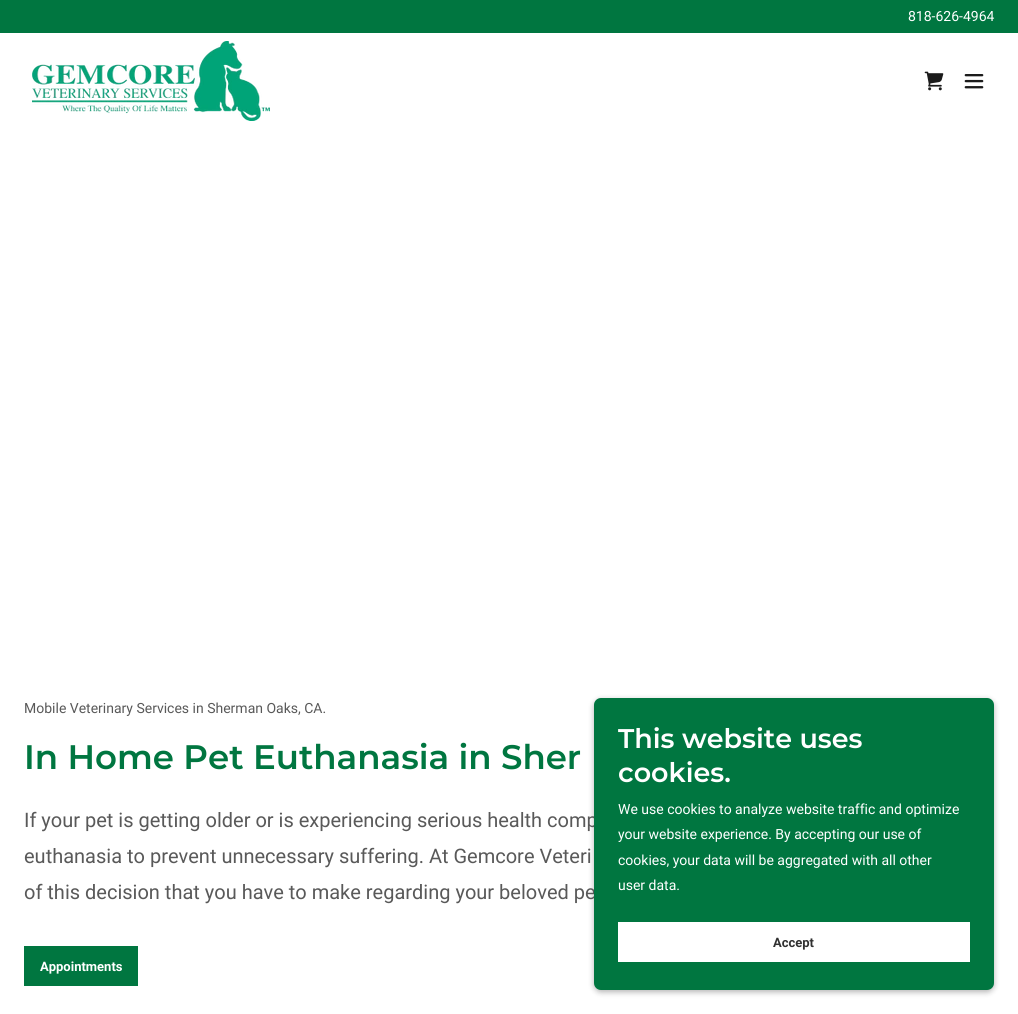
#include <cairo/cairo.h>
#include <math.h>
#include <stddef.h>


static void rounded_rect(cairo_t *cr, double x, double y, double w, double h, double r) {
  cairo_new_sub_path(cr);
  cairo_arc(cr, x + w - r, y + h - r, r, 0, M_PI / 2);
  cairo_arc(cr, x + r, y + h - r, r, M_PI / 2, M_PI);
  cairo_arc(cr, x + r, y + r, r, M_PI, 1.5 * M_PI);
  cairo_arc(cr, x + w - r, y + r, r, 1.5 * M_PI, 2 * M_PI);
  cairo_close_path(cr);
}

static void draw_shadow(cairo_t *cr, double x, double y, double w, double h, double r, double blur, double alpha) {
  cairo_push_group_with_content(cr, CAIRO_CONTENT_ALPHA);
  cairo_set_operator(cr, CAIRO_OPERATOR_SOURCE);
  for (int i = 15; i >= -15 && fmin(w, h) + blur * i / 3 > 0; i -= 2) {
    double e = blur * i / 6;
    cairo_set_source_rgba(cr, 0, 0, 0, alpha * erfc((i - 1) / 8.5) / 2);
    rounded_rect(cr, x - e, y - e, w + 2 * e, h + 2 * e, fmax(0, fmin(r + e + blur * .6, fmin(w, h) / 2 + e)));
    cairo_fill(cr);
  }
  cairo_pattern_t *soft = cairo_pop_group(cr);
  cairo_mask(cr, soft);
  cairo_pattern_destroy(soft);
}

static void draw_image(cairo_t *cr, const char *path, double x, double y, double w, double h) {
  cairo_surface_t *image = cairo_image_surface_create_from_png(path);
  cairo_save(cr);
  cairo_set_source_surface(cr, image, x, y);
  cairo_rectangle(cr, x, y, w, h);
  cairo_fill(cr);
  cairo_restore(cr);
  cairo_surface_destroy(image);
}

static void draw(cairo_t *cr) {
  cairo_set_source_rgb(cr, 1, 1, 1);
  cairo_paint(cr);
  cairo_set_source_rgb(cr, 0, 118 / 255.0, 64 / 255.0);
  cairo_rectangle(cr, 0, 0, 1018, 33);
  cairo_fill(cr);
  draw_image(cr, "images/1.png", 32, 41, 238, 80);
  draw_image(cr, "images/2.png", 924, 71, 20, 20);
  draw_image(cr, "images/3.png", 964, 74, 20, 15);
  cairo_rectangle(cr, 24, 946, 114, 40);
  cairo_fill(cr);
  cairo_set_source_rgb(cr, 0, 0, 0);
  draw_shadow(cr, 594, 700, 400, 292, 7, 3, 0.3);
  cairo_select_font_face(cr, "Roboto", CAIRO_FONT_SLANT_NORMAL, CAIRO_FONT_WEIGHT_NORMAL);
  cairo_set_font_size(cr, 14);
  cairo_set_source_rgb(cr, 1, 1, 1);
  cairo_move_to(cr, 908, 21);
  cairo_show_text(cr, "818-626-4964");
  cairo_set_source_rgb(cr, 89 / 255.0, 89 / 255.0, 89 / 255.0);
  cairo_move_to(cr, 24, 713);
  cairo_show_text(cr, "Mobile Veterinary Services in Sherman Oaks, CA.");
  cairo_select_font_face(cr, "Montserrat SemiBold", CAIRO_FONT_SLANT_NORMAL, CAIRO_FONT_WEIGHT_NORMAL);
  cairo_set_font_size(cr, 34);
  cairo_set_source_rgb(cr, 0, 118 / 255.0, 64 / 255.0);
  cairo_move_to(cr, 24, 769);
  cairo_show_text(cr, "In Home Pet Euthanasia in Sher");
  cairo_select_font_face(cr, "Roboto", CAIRO_FONT_SLANT_NORMAL, CAIRO_FONT_WEIGHT_NORMAL);
  cairo_set_font_size(cr, 20);
  cairo_set_source_rgb(cr, 89 / 255.0, 89 / 255.0, 89 / 255.0);
  cairo_move_to(cr, 24, 827);
  cairo_show_text(cr, "If your pet is getting older or is experiencing serious health comp");
  cairo_move_to(cr, 24, 863);
  cairo_show_text(cr, "euthanasia to prevent unnecessary suffering. At Gemcore Veteri");
  cairo_move_to(cr, 24, 899);
  cairo_show_text(cr, "of this decision that you have to make regarding your beloved pe");
  cairo_select_font_face(cr, "Roboto", CAIRO_FONT_SLANT_NORMAL, CAIRO_FONT_WEIGHT_BOLD);
  cairo_set_font_size(cr, 13);
  cairo_set_source_rgb(cr, 1, 1, 1);
  cairo_move_to(cr, 40, 971);
  cairo_show_text(cr, "Appointments");
  cairo_set_source_rgb(cr, 0, 118 / 255.0, 64 / 255.0);
  rounded_rect(cr, 594, 698, 400, 292, 7);
  cairo_fill(cr);
  cairo_select_font_face(cr, "Montserrat SemiBold", CAIRO_FONT_SLANT_NORMAL, CAIRO_FONT_WEIGHT_NORMAL);
  cairo_set_font_size(cr, 27);
  cairo_set_source_rgb(cr, 1, 1, 1);
  cairo_move_to(cr, 618, 748);
  cairo_show_text(cr, "This website uses");
  cairo_move_to(cr, 618, 782);
  cairo_show_text(cr, "cookies.");
  cairo_select_font_face(cr, "Roboto", CAIRO_FONT_SLANT_NORMAL, CAIRO_FONT_WEIGHT_NORMAL);
  cairo_set_font_size(cr, 14);
  cairo_move_to(cr, 618, 814);
  cairo_show_text(cr, "We use cookies to analyze website traffic and optimize");
  cairo_move_to(cr, 618, 839);
  cairo_show_text(cr, "your website experience. By accepting our use of");
  cairo_move_to(cr, 618, 865);
  cairo_show_text(cr, "cookies, your data will be aggregated with all other");
  cairo_move_to(cr, 618, 890);
  cairo_show_text(cr, "user data.");
  cairo_rectangle(cr, 618, 922, 352, 40);
  cairo_fill(cr);
  cairo_select_font_face(cr, "Roboto", CAIRO_FONT_SLANT_NORMAL, CAIRO_FONT_WEIGHT_BOLD);
  cairo_set_font_size(cr, 13);
  cairo_set_source_rgb(cr, 48 / 255.0, 48 / 255.0, 48 / 255.0);
  cairo_move_to(cr, 773, 947);
  cairo_show_text(cr, "Accept");
}

int main(void) {
  cairo_surface_t *surface = cairo_image_surface_create(CAIRO_FORMAT_RGB24, 1018, 1014);
  cairo_t *cr = cairo_create(surface);
  cairo_font_options_t *options = cairo_font_options_create();
  cairo_font_options_set_hint_metrics(options, CAIRO_HINT_METRICS_OFF);
  cairo_font_options_set_hint_style(options, CAIRO_HINT_STYLE_NONE);
  cairo_set_font_options(cr, options);
  cairo_set_miter_limit(cr, 4);
  draw(cr);
  cairo_surface_write_to_png(surface, "out.png");
  cairo_font_options_destroy(options);
  cairo_destroy(cr);
  cairo_surface_destroy(surface);
  return 0;
}
